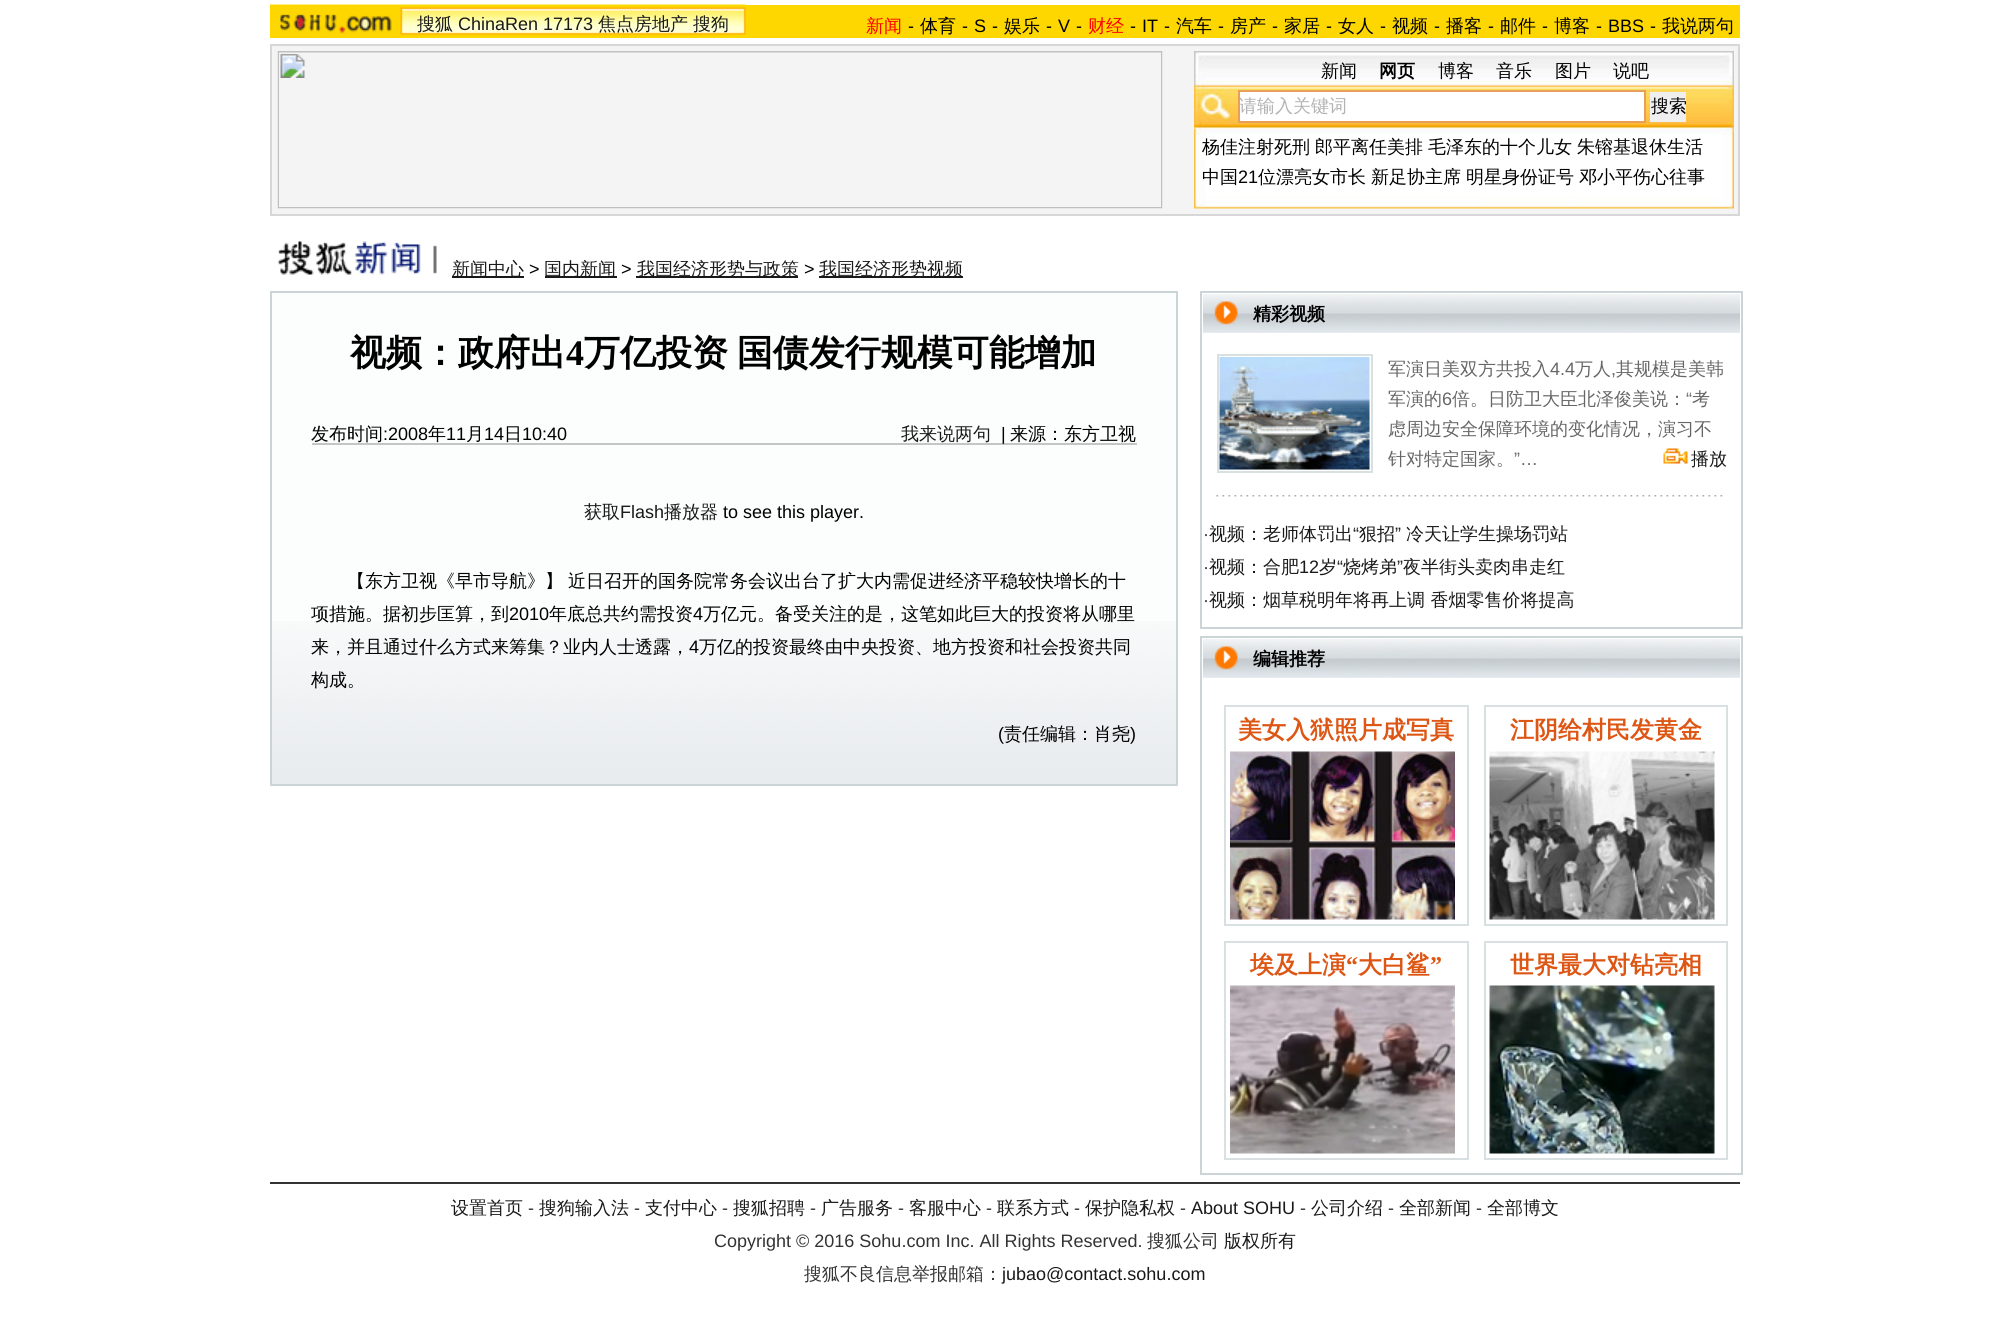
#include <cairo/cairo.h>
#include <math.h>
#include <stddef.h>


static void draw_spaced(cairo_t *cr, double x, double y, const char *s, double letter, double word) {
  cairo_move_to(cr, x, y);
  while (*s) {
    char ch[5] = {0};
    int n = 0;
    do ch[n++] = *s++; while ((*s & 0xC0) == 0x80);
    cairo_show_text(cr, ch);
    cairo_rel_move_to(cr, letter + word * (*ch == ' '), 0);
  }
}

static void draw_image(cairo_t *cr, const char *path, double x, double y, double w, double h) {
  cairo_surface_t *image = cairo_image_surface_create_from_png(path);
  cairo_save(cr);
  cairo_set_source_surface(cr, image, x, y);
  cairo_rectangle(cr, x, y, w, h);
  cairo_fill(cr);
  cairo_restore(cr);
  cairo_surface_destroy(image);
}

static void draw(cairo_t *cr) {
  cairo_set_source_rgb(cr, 1, 1, 1);
  cairo_paint(cr);
  cairo_set_source_rgb(cr, 1, 215 / 255.0, 0);
  cairo_rectangle(cr, 270, 5, 1470, 33);
  cairo_fill(cr);
  draw_image(cr, "images/1.png", 270, 4, 131, 30);
  draw_image(cr, "images/2.png", 400, 4, 346, 31);
  cairo_set_source_rgb(cr, 244 / 255.0, 244 / 255.0, 244 / 255.0);
  cairo_rectangle(cr, 271, 45, 1468, 170);
  cairo_fill_preserve(cr);
  cairo_set_source_rgb(cr, 215 / 255.0, 215 / 255.0, 215 / 255.0);
  cairo_stroke(cr);
  draw_image(cr, "images/3.png", 277, 51, 886, 158);
  draw_image(cr, "images/4.png", 1194, 51, 540, 158);
  cairo_set_source_rgb(cr, 1, 1, 1);
  cairo_rectangle(cr, 1239, 91, 406, 31);
  cairo_fill_preserve(cr);
  cairo_set_source_rgb(cr, 232 / 255.0, 159 / 255.0, 87 / 255.0);
  cairo_stroke(cr);
  cairo_set_source_rgb(cr, 239 / 255.0, 239 / 255.0, 239 / 255.0);
  cairo_rectangle(cr, 1650, 92, 36, 30);
  cairo_fill(cr);
  draw_image(cr, "images/5.png", 277, 241, 160, 34);
  cairo_set_source_rgb(cr, 25 / 255.0, 25 / 255.0, 25 / 255.0);
  cairo_rectangle(cr, 452, 276, 72, 2);
  cairo_fill(cr);
  cairo_rectangle(cr, 545, 276, 72, 2);
  cairo_fill(cr);
  cairo_rectangle(cr, 636, 276, 162, 2);
  cairo_fill(cr);
  cairo_rectangle(cr, 819, 276, 144, 2);
  cairo_fill(cr);
  cairo_set_source_rgb(cr, 252 / 255.0, 253 / 255.0, 253 / 255.0);
  cairo_rectangle(cr, 272, 293, 904, 328);
  cairo_fill(cr);
  draw_image(cr, "images/6.png", 272, 621, 904, 163);
  cairo_rectangle(cr, 271, 292, 906, 493);
  cairo_set_source_rgb(cr, 203 / 255.0, 213 / 255.0, 215 / 255.0);
  cairo_stroke(cr);
  cairo_set_source_rgb(cr, 197 / 255.0, 197 / 255.0, 197 / 255.0);
  cairo_rectangle(cr, 312, 443, 825, 2);
  cairo_fill(cr);
  cairo_rectangle(cr, 1201, 292, 541, 336);
  cairo_set_source_rgb(cr, 203 / 255.0, 213 / 255.0, 215 / 255.0);
  cairo_stroke(cr);
  draw_image(cr, "images/7.png", 1203, 294, 537, 39);
  cairo_rectangle(cr, 1218, 355, 154, 117);
  cairo_set_source_rgb(cr, 217 / 255.0, 224 / 255.0, 226 / 255.0);
  cairo_stroke(cr);
  draw_image(cr, "images/8.png", 1219, 357, 151, 113);
  draw_image(cr, "images/9.png", 1663, 448, 25, 16);
  draw_image(cr, "images/10.png", 1216, 495, 507, 2);
  cairo_rectangle(cr, 1201, 637, 541, 537);
  cairo_set_source_rgb(cr, 203 / 255.0, 213 / 255.0, 215 / 255.0);
  cairo_stroke(cr);
  draw_image(cr, "images/11.png", 1203, 639, 537, 39);
  cairo_rectangle(cr, 1225, 706, 243, 219);
  cairo_set_source_rgb(cr, 217 / 255.0, 224 / 255.0, 226 / 255.0);
  cairo_stroke(cr);
  draw_image(cr, "images/12.png", 1230, 751, 225, 169);
  cairo_rectangle(cr, 1485, 706, 242, 219);
  cairo_stroke(cr);
  draw_image(cr, "images/13.png", 1489, 751, 226, 169);
  cairo_rectangle(cr, 1225, 942, 243, 217);
  cairo_stroke(cr);
  draw_image(cr, "images/14.png", 1230, 985, 225, 169);
  cairo_rectangle(cr, 1485, 942, 242, 217);
  cairo_stroke(cr);
  draw_image(cr, "images/15.png", 1489, 985, 226, 169);
  cairo_set_source_rgb(cr, 51 / 255.0, 51 / 255.0, 51 / 255.0);
  cairo_rectangle(cr, 270, 1182, 1470, 2);
  cairo_fill(cr);
  cairo_select_font_face(cr, "WenQuanYi Zen Hei Medium", CAIRO_FONT_SLANT_NORMAL, CAIRO_FONT_WEIGHT_NORMAL);
  cairo_set_font_size(cr, 18);
  cairo_set_source_rgb(cr, 25 / 255.0, 25 / 255.0, 25 / 255.0);
  cairo_move_to(cr, 417, 30);
  cairo_show_text(cr, "搜狐");
  cairo_select_font_face(cr, "Liberation Sans", CAIRO_FONT_SLANT_NORMAL, CAIRO_FONT_WEIGHT_NORMAL);
  cairo_move_to(cr, 458, 30);
  cairo_show_text(cr, "ChinaRen 17173");
  cairo_select_font_face(cr, "WenQuanYi Zen Hei Medium", CAIRO_FONT_SLANT_NORMAL, CAIRO_FONT_WEIGHT_NORMAL);
  cairo_move_to(cr, 598, 30);
  cairo_show_text(cr, "焦点房地产");
  cairo_move_to(cr, 693, 30);
  cairo_show_text(cr, "搜狗");
  cairo_set_source_rgb(cr, 1, 0, 0);
  cairo_move_to(cr, 866, 32);
  cairo_show_text(cr, "新闻");
  cairo_select_font_face(cr, "Liberation Sans", CAIRO_FONT_SLANT_NORMAL, CAIRO_FONT_WEIGHT_NORMAL);
  cairo_set_source_rgb(cr, 0, 0, 0);
  cairo_move_to(cr, 908, 32);
  cairo_show_text(cr, "-");
  cairo_select_font_face(cr, "WenQuanYi Zen Hei Medium", CAIRO_FONT_SLANT_NORMAL, CAIRO_FONT_WEIGHT_NORMAL);
  cairo_move_to(cr, 920, 32);
  cairo_show_text(cr, "体育");
  cairo_select_font_face(cr, "Liberation Sans", CAIRO_FONT_SLANT_NORMAL, CAIRO_FONT_WEIGHT_NORMAL);
  cairo_move_to(cr, 962, 32);
  cairo_show_text(cr, "-");
  cairo_move_to(cr, 974, 32);
  cairo_show_text(cr, "S");
  cairo_move_to(cr, 992, 32);
  cairo_show_text(cr, "-");
  cairo_select_font_face(cr, "WenQuanYi Zen Hei Medium", CAIRO_FONT_SLANT_NORMAL, CAIRO_FONT_WEIGHT_NORMAL);
  cairo_move_to(cr, 1004, 32);
  cairo_show_text(cr, "娱乐");
  cairo_select_font_face(cr, "Liberation Sans", CAIRO_FONT_SLANT_NORMAL, CAIRO_FONT_WEIGHT_NORMAL);
  cairo_move_to(cr, 1046, 32);
  cairo_show_text(cr, "-");
  cairo_move_to(cr, 1058, 32);
  cairo_show_text(cr, "V");
  cairo_move_to(cr, 1076, 32);
  cairo_show_text(cr, "-");
  cairo_select_font_face(cr, "WenQuanYi Zen Hei Medium", CAIRO_FONT_SLANT_NORMAL, CAIRO_FONT_WEIGHT_NORMAL);
  cairo_set_source_rgb(cr, 1, 0, 0);
  cairo_move_to(cr, 1088, 32);
  cairo_show_text(cr, "财经");
  cairo_select_font_face(cr, "Liberation Sans", CAIRO_FONT_SLANT_NORMAL, CAIRO_FONT_WEIGHT_NORMAL);
  cairo_set_source_rgb(cr, 0, 0, 0);
  cairo_move_to(cr, 1130, 32);
  cairo_show_text(cr, "-");
  cairo_move_to(cr, 1142, 32);
  cairo_show_text(cr, "IT");
  cairo_move_to(cr, 1164, 32);
  cairo_show_text(cr, "-");
  cairo_select_font_face(cr, "WenQuanYi Zen Hei Medium", CAIRO_FONT_SLANT_NORMAL, CAIRO_FONT_WEIGHT_NORMAL);
  cairo_move_to(cr, 1176, 32);
  cairo_show_text(cr, "汽车");
  cairo_select_font_face(cr, "Liberation Sans", CAIRO_FONT_SLANT_NORMAL, CAIRO_FONT_WEIGHT_NORMAL);
  cairo_move_to(cr, 1218, 32);
  cairo_show_text(cr, "-");
  cairo_select_font_face(cr, "WenQuanYi Zen Hei Medium", CAIRO_FONT_SLANT_NORMAL, CAIRO_FONT_WEIGHT_NORMAL);
  cairo_move_to(cr, 1230, 32);
  cairo_show_text(cr, "房产");
  cairo_select_font_face(cr, "Liberation Sans", CAIRO_FONT_SLANT_NORMAL, CAIRO_FONT_WEIGHT_NORMAL);
  cairo_move_to(cr, 1272, 32);
  cairo_show_text(cr, "-");
  cairo_select_font_face(cr, "WenQuanYi Zen Hei Medium", CAIRO_FONT_SLANT_NORMAL, CAIRO_FONT_WEIGHT_NORMAL);
  cairo_move_to(cr, 1284, 32);
  cairo_show_text(cr, "家居");
  cairo_select_font_face(cr, "Liberation Sans", CAIRO_FONT_SLANT_NORMAL, CAIRO_FONT_WEIGHT_NORMAL);
  cairo_move_to(cr, 1326, 32);
  cairo_show_text(cr, "-");
  cairo_select_font_face(cr, "WenQuanYi Zen Hei Medium", CAIRO_FONT_SLANT_NORMAL, CAIRO_FONT_WEIGHT_NORMAL);
  cairo_move_to(cr, 1338, 32);
  cairo_show_text(cr, "女人");
  cairo_select_font_face(cr, "Liberation Sans", CAIRO_FONT_SLANT_NORMAL, CAIRO_FONT_WEIGHT_NORMAL);
  cairo_move_to(cr, 1380, 32);
  cairo_show_text(cr, "-");
  cairo_select_font_face(cr, "WenQuanYi Zen Hei Medium", CAIRO_FONT_SLANT_NORMAL, CAIRO_FONT_WEIGHT_NORMAL);
  cairo_move_to(cr, 1392, 32);
  cairo_show_text(cr, "视频");
  cairo_select_font_face(cr, "Liberation Sans", CAIRO_FONT_SLANT_NORMAL, CAIRO_FONT_WEIGHT_NORMAL);
  cairo_move_to(cr, 1434, 32);
  cairo_show_text(cr, "-");
  cairo_select_font_face(cr, "WenQuanYi Zen Hei Medium", CAIRO_FONT_SLANT_NORMAL, CAIRO_FONT_WEIGHT_NORMAL);
  cairo_move_to(cr, 1446, 32);
  cairo_show_text(cr, "播客");
  cairo_select_font_face(cr, "Liberation Sans", CAIRO_FONT_SLANT_NORMAL, CAIRO_FONT_WEIGHT_NORMAL);
  cairo_move_to(cr, 1488, 32);
  cairo_show_text(cr, "-");
  cairo_select_font_face(cr, "WenQuanYi Zen Hei Medium", CAIRO_FONT_SLANT_NORMAL, CAIRO_FONT_WEIGHT_NORMAL);
  cairo_move_to(cr, 1500, 32);
  cairo_show_text(cr, "邮件");
  cairo_select_font_face(cr, "Liberation Sans", CAIRO_FONT_SLANT_NORMAL, CAIRO_FONT_WEIGHT_NORMAL);
  cairo_move_to(cr, 1542, 32);
  cairo_show_text(cr, "-");
  cairo_select_font_face(cr, "WenQuanYi Zen Hei Medium", CAIRO_FONT_SLANT_NORMAL, CAIRO_FONT_WEIGHT_NORMAL);
  cairo_move_to(cr, 1554, 32);
  cairo_show_text(cr, "博客");
  cairo_select_font_face(cr, "Liberation Sans", CAIRO_FONT_SLANT_NORMAL, CAIRO_FONT_WEIGHT_NORMAL);
  cairo_move_to(cr, 1596, 32);
  cairo_show_text(cr, "-");
  cairo_move_to(cr, 1608, 32);
  cairo_show_text(cr, "BBS");
  cairo_move_to(cr, 1650, 32);
  cairo_show_text(cr, "-");
  cairo_select_font_face(cr, "WenQuanYi Zen Hei Medium", CAIRO_FONT_SLANT_NORMAL, CAIRO_FONT_WEIGHT_NORMAL);
  cairo_move_to(cr, 1662, 32);
  cairo_show_text(cr, "我说两句");
  cairo_move_to(cr, 1321, 77);
  cairo_show_text(cr, "新闻");
  cairo_select_font_face(cr, "WenQuanYi Zen Hei", CAIRO_FONT_SLANT_NORMAL, CAIRO_FONT_WEIGHT_BOLD);
  cairo_move_to(cr, 1379, 77);
  cairo_show_text(cr, "网页");
  cairo_select_font_face(cr, "WenQuanYi Zen Hei Medium", CAIRO_FONT_SLANT_NORMAL, CAIRO_FONT_WEIGHT_NORMAL);
  cairo_move_to(cr, 1438, 77);
  cairo_show_text(cr, "博客");
  cairo_move_to(cr, 1496, 77);
  cairo_show_text(cr, "音乐");
  cairo_move_to(cr, 1555, 77);
  cairo_show_text(cr, "图片");
  cairo_move_to(cr, 1613, 77);
  cairo_show_text(cr, "说吧");
  cairo_set_source_rgb(cr, 179 / 255.0, 179 / 255.0, 179 / 255.0);
  cairo_move_to(cr, 1239, 112);
  cairo_show_text(cr, "请输入关键词");
  cairo_set_source_rgb(cr, 0, 0, 0);
  cairo_move_to(cr, 1651, 112);
  cairo_show_text(cr, "搜索");
  cairo_move_to(cr, 1202, 153);
  cairo_show_text(cr, "杨佳注射死刑");
  cairo_move_to(cr, 1315, 153);
  cairo_show_text(cr, "郎平离任美排");
  cairo_move_to(cr, 1428, 153);
  cairo_show_text(cr, "毛泽东的十个儿女");
  cairo_move_to(cr, 1577, 153);
  cairo_show_text(cr, "朱镕基退休生活");
  cairo_move_to(cr, 1202, 183);
  cairo_show_text(cr, "中国");
  cairo_select_font_face(cr, "Liberation Sans", CAIRO_FONT_SLANT_NORMAL, CAIRO_FONT_WEIGHT_NORMAL);
  cairo_move_to(cr, 1238, 183);
  cairo_show_text(cr, "21");
  cairo_select_font_face(cr, "WenQuanYi Zen Hei Medium", CAIRO_FONT_SLANT_NORMAL, CAIRO_FONT_WEIGHT_NORMAL);
  cairo_move_to(cr, 1258, 183);
  cairo_show_text(cr, "位漂亮女市长");
  cairo_move_to(cr, 1371, 183);
  cairo_show_text(cr, "新足协主席");
  cairo_move_to(cr, 1466, 183);
  cairo_show_text(cr, "明星身份证号");
  cairo_move_to(cr, 1579, 183);
  cairo_show_text(cr, "邓小平伤心往事");
  cairo_set_source_rgb(cr, 25 / 255.0, 25 / 255.0, 25 / 255.0);
  cairo_move_to(cr, 452, 275);
  cairo_show_text(cr, "新闻中心");
  cairo_select_font_face(cr, "Liberation Sans", CAIRO_FONT_SLANT_NORMAL, CAIRO_FONT_WEIGHT_NORMAL);
  cairo_set_source_rgb(cr, 0, 0, 0);
  cairo_move_to(cr, 529, 275);
  cairo_show_text(cr, ">");
  cairo_select_font_face(cr, "WenQuanYi Zen Hei Medium", CAIRO_FONT_SLANT_NORMAL, CAIRO_FONT_WEIGHT_NORMAL);
  cairo_set_source_rgb(cr, 25 / 255.0, 25 / 255.0, 25 / 255.0);
  cairo_move_to(cr, 544, 275);
  cairo_show_text(cr, "国内新闻");
  cairo_select_font_face(cr, "Liberation Sans", CAIRO_FONT_SLANT_NORMAL, CAIRO_FONT_WEIGHT_NORMAL);
  cairo_set_source_rgb(cr, 0, 0, 0);
  cairo_move_to(cr, 621, 275);
  cairo_show_text(cr, ">");
  cairo_select_font_face(cr, "WenQuanYi Zen Hei Medium", CAIRO_FONT_SLANT_NORMAL, CAIRO_FONT_WEIGHT_NORMAL);
  cairo_set_source_rgb(cr, 25 / 255.0, 25 / 255.0, 25 / 255.0);
  cairo_move_to(cr, 637, 275);
  cairo_show_text(cr, "我国经济形势与政策");
  cairo_select_font_face(cr, "Liberation Sans", CAIRO_FONT_SLANT_NORMAL, CAIRO_FONT_WEIGHT_NORMAL);
  cairo_set_source_rgb(cr, 0, 0, 0);
  cairo_move_to(cr, 804, 275);
  cairo_show_text(cr, ">");
  cairo_select_font_face(cr, "WenQuanYi Zen Hei Medium", CAIRO_FONT_SLANT_NORMAL, CAIRO_FONT_WEIGHT_NORMAL);
  cairo_set_source_rgb(cr, 25 / 255.0, 25 / 255.0, 25 / 255.0);
  cairo_move_to(cr, 819, 275);
  cairo_show_text(cr, "我国经济形势视频");
  cairo_select_font_face(cr, "WenQuanYi Zen Hei", CAIRO_FONT_SLANT_NORMAL, CAIRO_FONT_WEIGHT_BOLD);
  cairo_set_font_size(cr, 36);
  cairo_set_source_rgb(cr, 0, 0, 0);
  cairo_move_to(cr, 350, 365);
  cairo_show_text(cr, "视频：政府出");
  cairo_select_font_face(cr, "Liberation Serif", CAIRO_FONT_SLANT_NORMAL, CAIRO_FONT_WEIGHT_BOLD);
  cairo_move_to(cr, 566, 365);
  cairo_show_text(cr, "4");
  cairo_select_font_face(cr, "WenQuanYi Zen Hei", CAIRO_FONT_SLANT_NORMAL, CAIRO_FONT_WEIGHT_BOLD);
  draw_spaced(cr, 584, 365, "万亿投资 国债发行规模可能增加", 0, -2);
  cairo_select_font_face(cr, "WenQuanYi Zen Hei Medium", CAIRO_FONT_SLANT_NORMAL, CAIRO_FONT_WEIGHT_NORMAL);
  cairo_set_font_size(cr, 18);
  cairo_move_to(cr, 311, 440);
  cairo_show_text(cr, "发布时间");
  cairo_select_font_face(cr, "Liberation Sans", CAIRO_FONT_SLANT_NORMAL, CAIRO_FONT_WEIGHT_NORMAL);
  cairo_move_to(cr, 383, 440);
  cairo_show_text(cr, ":2008");
  cairo_select_font_face(cr, "WenQuanYi Zen Hei Medium", CAIRO_FONT_SLANT_NORMAL, CAIRO_FONT_WEIGHT_NORMAL);
  cairo_move_to(cr, 428, 440);
  cairo_show_text(cr, "年");
  cairo_select_font_face(cr, "Liberation Sans", CAIRO_FONT_SLANT_NORMAL, CAIRO_FONT_WEIGHT_NORMAL);
  cairo_move_to(cr, 446, 440);
  cairo_show_text(cr, "11");
  cairo_select_font_face(cr, "WenQuanYi Zen Hei Medium", CAIRO_FONT_SLANT_NORMAL, CAIRO_FONT_WEIGHT_NORMAL);
  cairo_move_to(cr, 466, 440);
  cairo_show_text(cr, "月");
  cairo_select_font_face(cr, "Liberation Sans", CAIRO_FONT_SLANT_NORMAL, CAIRO_FONT_WEIGHT_NORMAL);
  cairo_move_to(cr, 484, 440);
  cairo_show_text(cr, "14");
  cairo_select_font_face(cr, "WenQuanYi Zen Hei Medium", CAIRO_FONT_SLANT_NORMAL, CAIRO_FONT_WEIGHT_NORMAL);
  cairo_move_to(cr, 504, 440);
  cairo_show_text(cr, "日");
  cairo_select_font_face(cr, "Liberation Sans", CAIRO_FONT_SLANT_NORMAL, CAIRO_FONT_WEIGHT_NORMAL);
  cairo_move_to(cr, 522, 440);
  cairo_show_text(cr, "10:40");
  cairo_select_font_face(cr, "WenQuanYi Zen Hei Medium", CAIRO_FONT_SLANT_NORMAL, CAIRO_FONT_WEIGHT_NORMAL);
  cairo_set_source_rgb(cr, 25 / 255.0, 25 / 255.0, 25 / 255.0);
  cairo_move_to(cr, 901, 440);
  cairo_show_text(cr, "我来说两句");
  cairo_select_font_face(cr, "Liberation Sans", CAIRO_FONT_SLANT_NORMAL, CAIRO_FONT_WEIGHT_NORMAL);
  cairo_set_source_rgb(cr, 0, 0, 0);
  cairo_move_to(cr, 1001, 440);
  cairo_show_text(cr, "|");
  cairo_select_font_face(cr, "WenQuanYi Zen Hei Medium", CAIRO_FONT_SLANT_NORMAL, CAIRO_FONT_WEIGHT_NORMAL);
  cairo_move_to(cr, 1010, 440);
  cairo_show_text(cr, "来源：东方卫视");
  cairo_set_source_rgb(cr, 25 / 255.0, 25 / 255.0, 25 / 255.0);
  cairo_move_to(cr, 584, 518);
  cairo_show_text(cr, "获取");
  cairo_select_font_face(cr, "Liberation Sans", CAIRO_FONT_SLANT_NORMAL, CAIRO_FONT_WEIGHT_NORMAL);
  cairo_move_to(cr, 620, 518);
  cairo_show_text(cr, "Flash");
  cairo_select_font_face(cr, "WenQuanYi Zen Hei Medium", CAIRO_FONT_SLANT_NORMAL, CAIRO_FONT_WEIGHT_NORMAL);
  cairo_move_to(cr, 664, 518);
  cairo_show_text(cr, "播放器");
  cairo_select_font_face(cr, "Liberation Sans", CAIRO_FONT_SLANT_NORMAL, CAIRO_FONT_WEIGHT_NORMAL);
  cairo_set_source_rgb(cr, 0, 0, 0);
  cairo_move_to(cr, 723, 518);
  cairo_show_text(cr, "to see this player.");
  cairo_select_font_face(cr, "WenQuanYi Zen Hei Medium", CAIRO_FONT_SLANT_NORMAL, CAIRO_FONT_WEIGHT_NORMAL);
  cairo_move_to(cr, 347, 587);
  cairo_show_text(cr, "【东方卫视《早市导航》】");
  cairo_move_to(cr, 568, 587);
  cairo_show_text(cr, "近日召开的国务院常务会议出台了扩大内需促进经济平稳较快增长的十");
  cairo_move_to(cr, 311, 620);
  cairo_show_text(cr, "项措施。据初步匡算，到");
  cairo_select_font_face(cr, "Liberation Sans", CAIRO_FONT_SLANT_NORMAL, CAIRO_FONT_WEIGHT_NORMAL);
  cairo_move_to(cr, 509, 620);
  cairo_show_text(cr, "2010");
  cairo_select_font_face(cr, "WenQuanYi Zen Hei Medium", CAIRO_FONT_SLANT_NORMAL, CAIRO_FONT_WEIGHT_NORMAL);
  cairo_move_to(cr, 549, 620);
  cairo_show_text(cr, "年底总共约需投资");
  cairo_select_font_face(cr, "Liberation Sans", CAIRO_FONT_SLANT_NORMAL, CAIRO_FONT_WEIGHT_NORMAL);
  cairo_move_to(cr, 693, 620);
  cairo_show_text(cr, "4");
  cairo_select_font_face(cr, "WenQuanYi Zen Hei Medium", CAIRO_FONT_SLANT_NORMAL, CAIRO_FONT_WEIGHT_NORMAL);
  cairo_move_to(cr, 703, 620);
  cairo_show_text(cr, "万亿元。备受关注的是，这笔如此巨大的投资将从哪里");
  cairo_move_to(cr, 311, 653);
  cairo_show_text(cr, "来，并且通过什么方式来筹集？业内人士透露，");
  cairo_select_font_face(cr, "Liberation Sans", CAIRO_FONT_SLANT_NORMAL, CAIRO_FONT_WEIGHT_NORMAL);
  cairo_move_to(cr, 689, 653);
  cairo_show_text(cr, "4");
  cairo_select_font_face(cr, "WenQuanYi Zen Hei Medium", CAIRO_FONT_SLANT_NORMAL, CAIRO_FONT_WEIGHT_NORMAL);
  cairo_move_to(cr, 699, 653);
  cairo_show_text(cr, "万亿的投资最终由中央投资、地方投资和社会投资共同");
  cairo_move_to(cr, 311, 686);
  cairo_show_text(cr, "构成。");
  cairo_select_font_face(cr, "Liberation Sans", CAIRO_FONT_SLANT_NORMAL, CAIRO_FONT_WEIGHT_NORMAL);
  cairo_move_to(cr, 998, 740);
  cairo_show_text(cr, "(");
  cairo_select_font_face(cr, "WenQuanYi Zen Hei Medium", CAIRO_FONT_SLANT_NORMAL, CAIRO_FONT_WEIGHT_NORMAL);
  cairo_move_to(cr, 1004, 740);
  cairo_show_text(cr, "责任编辑：肖尧");
  cairo_select_font_face(cr, "Liberation Sans", CAIRO_FONT_SLANT_NORMAL, CAIRO_FONT_WEIGHT_NORMAL);
  cairo_move_to(cr, 1130, 740);
  cairo_show_text(cr, ")");
  cairo_select_font_face(cr, "WenQuanYi Zen Hei", CAIRO_FONT_SLANT_NORMAL, CAIRO_FONT_WEIGHT_BOLD);
  cairo_move_to(cr, 1253, 320);
  cairo_show_text(cr, "精彩视频");
  cairo_select_font_face(cr, "WenQuanYi Zen Hei Medium", CAIRO_FONT_SLANT_NORMAL, CAIRO_FONT_WEIGHT_NORMAL);
  cairo_set_source_rgb(cr, 102 / 255.0, 102 / 255.0, 102 / 255.0);
  cairo_move_to(cr, 1388, 375);
  cairo_show_text(cr, "军演日美双方共投入");
  cairo_select_font_face(cr, "Liberation Sans", CAIRO_FONT_SLANT_NORMAL, CAIRO_FONT_WEIGHT_NORMAL);
  cairo_move_to(cr, 1550, 375);
  cairo_show_text(cr, "4.4");
  cairo_select_font_face(cr, "WenQuanYi Zen Hei Medium", CAIRO_FONT_SLANT_NORMAL, CAIRO_FONT_WEIGHT_NORMAL);
  cairo_move_to(cr, 1575, 375);
  cairo_show_text(cr, "万人");
  cairo_move_to(cr, 1616, 375);
  cairo_show_text(cr, "其规模是美韩");
  cairo_select_font_face(cr, "Liberation Sans", CAIRO_FONT_SLANT_NORMAL, CAIRO_FONT_WEIGHT_NORMAL);
  cairo_move_to(cr, 1611, 375);
  cairo_show_text(cr, ",");
  cairo_select_font_face(cr, "WenQuanYi Zen Hei Medium", CAIRO_FONT_SLANT_NORMAL, CAIRO_FONT_WEIGHT_NORMAL);
  cairo_move_to(cr, 1388, 405);
  cairo_show_text(cr, "军演的");
  cairo_select_font_face(cr, "Liberation Sans", CAIRO_FONT_SLANT_NORMAL, CAIRO_FONT_WEIGHT_NORMAL);
  cairo_move_to(cr, 1442, 405);
  cairo_show_text(cr, "6");
  cairo_select_font_face(cr, "WenQuanYi Zen Hei Medium", CAIRO_FONT_SLANT_NORMAL, CAIRO_FONT_WEIGHT_NORMAL);
  cairo_move_to(cr, 1452, 405);
  cairo_show_text(cr, "倍。日防卫大臣北泽俊美说：");
  cairo_select_font_face(cr, "Liberation Sans", CAIRO_FONT_SLANT_NORMAL, CAIRO_FONT_WEIGHT_NORMAL);
  cairo_move_to(cr, 1686, 405);
  cairo_show_text(cr, "“");
  cairo_select_font_face(cr, "WenQuanYi Zen Hei Medium", CAIRO_FONT_SLANT_NORMAL, CAIRO_FONT_WEIGHT_NORMAL);
  cairo_move_to(cr, 1692, 405);
  cairo_show_text(cr, "考");
  cairo_move_to(cr, 1388, 435);
  cairo_show_text(cr, "虑周边安全保障环境的变化情况，演习不");
  cairo_move_to(cr, 1388, 465);
  cairo_show_text(cr, "针对特定国家。");
  cairo_select_font_face(cr, "Liberation Sans", CAIRO_FONT_SLANT_NORMAL, CAIRO_FONT_WEIGHT_NORMAL);
  cairo_move_to(cr, 1514, 465);
  cairo_show_text(cr, "”…");
  cairo_select_font_face(cr, "WenQuanYi Zen Hei Medium", CAIRO_FONT_SLANT_NORMAL, CAIRO_FONT_WEIGHT_NORMAL);
  cairo_set_source_rgb(cr, 25 / 255.0, 25 / 255.0, 25 / 255.0);
  cairo_move_to(cr, 1691, 465);
  cairo_show_text(cr, "播放");
  cairo_move_to(cr, 1209, 540);
  cairo_show_text(cr, "视频：老师体罚出");
  cairo_select_font_face(cr, "Liberation Sans", CAIRO_FONT_SLANT_NORMAL, CAIRO_FONT_WEIGHT_NORMAL);
  cairo_move_to(cr, 1353, 540);
  cairo_show_text(cr, "“");
  cairo_select_font_face(cr, "WenQuanYi Zen Hei Medium", CAIRO_FONT_SLANT_NORMAL, CAIRO_FONT_WEIGHT_NORMAL);
  cairo_move_to(cr, 1359, 540);
  cairo_show_text(cr, "狠招");
  cairo_select_font_face(cr, "Liberation Sans", CAIRO_FONT_SLANT_NORMAL, CAIRO_FONT_WEIGHT_NORMAL);
  cairo_move_to(cr, 1395, 540);
  cairo_show_text(cr, "”");
  cairo_select_font_face(cr, "WenQuanYi Zen Hei Medium", CAIRO_FONT_SLANT_NORMAL, CAIRO_FONT_WEIGHT_NORMAL);
  cairo_move_to(cr, 1406, 540);
  cairo_show_text(cr, "冷天让学生操场罚站");
  cairo_select_font_face(cr, "Liberation Sans", CAIRO_FONT_SLANT_NORMAL, CAIRO_FONT_WEIGHT_NORMAL);
  cairo_set_source_rgb(cr, 51 / 255.0, 51 / 255.0, 51 / 255.0);
  cairo_move_to(cr, 1203, 540);
  cairo_show_text(cr, "·");
  cairo_select_font_face(cr, "WenQuanYi Zen Hei Medium", CAIRO_FONT_SLANT_NORMAL, CAIRO_FONT_WEIGHT_NORMAL);
  cairo_set_source_rgb(cr, 25 / 255.0, 25 / 255.0, 25 / 255.0);
  cairo_move_to(cr, 1209, 573);
  cairo_show_text(cr, "视频：合肥");
  cairo_select_font_face(cr, "Liberation Sans", CAIRO_FONT_SLANT_NORMAL, CAIRO_FONT_WEIGHT_NORMAL);
  cairo_move_to(cr, 1299, 573);
  cairo_show_text(cr, "12");
  cairo_select_font_face(cr, "WenQuanYi Zen Hei Medium", CAIRO_FONT_SLANT_NORMAL, CAIRO_FONT_WEIGHT_NORMAL);
  cairo_move_to(cr, 1319, 573);
  cairo_show_text(cr, "岁");
  cairo_select_font_face(cr, "Liberation Sans", CAIRO_FONT_SLANT_NORMAL, CAIRO_FONT_WEIGHT_NORMAL);
  cairo_move_to(cr, 1337, 573);
  cairo_show_text(cr, "“");
  cairo_select_font_face(cr, "WenQuanYi Zen Hei Medium", CAIRO_FONT_SLANT_NORMAL, CAIRO_FONT_WEIGHT_NORMAL);
  cairo_move_to(cr, 1343, 573);
  cairo_show_text(cr, "烧烤弟");
  cairo_select_font_face(cr, "Liberation Sans", CAIRO_FONT_SLANT_NORMAL, CAIRO_FONT_WEIGHT_NORMAL);
  cairo_move_to(cr, 1397, 573);
  cairo_show_text(cr, "”");
  cairo_select_font_face(cr, "WenQuanYi Zen Hei Medium", CAIRO_FONT_SLANT_NORMAL, CAIRO_FONT_WEIGHT_NORMAL);
  cairo_move_to(cr, 1403, 573);
  cairo_show_text(cr, "夜半街头卖肉串走红");
  cairo_select_font_face(cr, "Liberation Sans", CAIRO_FONT_SLANT_NORMAL, CAIRO_FONT_WEIGHT_NORMAL);
  cairo_set_source_rgb(cr, 51 / 255.0, 51 / 255.0, 51 / 255.0);
  cairo_move_to(cr, 1203, 573);
  cairo_show_text(cr, "·");
  cairo_move_to(cr, 1203, 606);
  cairo_show_text(cr, "·");
  cairo_select_font_face(cr, "WenQuanYi Zen Hei Medium", CAIRO_FONT_SLANT_NORMAL, CAIRO_FONT_WEIGHT_NORMAL);
  cairo_set_source_rgb(cr, 25 / 255.0, 25 / 255.0, 25 / 255.0);
  cairo_move_to(cr, 1209, 606);
  cairo_show_text(cr, "视频：烟草税明年将再上调 香烟零售价将提高");
  cairo_select_font_face(cr, "WenQuanYi Zen Hei", CAIRO_FONT_SLANT_NORMAL, CAIRO_FONT_WEIGHT_BOLD);
  cairo_set_source_rgb(cr, 0, 0, 0);
  cairo_move_to(cr, 1253, 665);
  cairo_show_text(cr, "编辑推荐");
  cairo_set_font_size(cr, 24);
  cairo_set_source_rgb(cr, 221 / 255.0, 86 / 255.0, 20 / 255.0);
  cairo_move_to(cr, 1238, 738);
  cairo_show_text(cr, "美女入狱照片成写真");
  cairo_move_to(cr, 1510, 738);
  cairo_show_text(cr, "江阴给村民发黄金");
  cairo_move_to(cr, 1250, 973);
  cairo_show_text(cr, "埃及上演");
  cairo_select_font_face(cr, "Liberation Serif", CAIRO_FONT_SLANT_NORMAL, CAIRO_FONT_WEIGHT_BOLD);
  cairo_move_to(cr, 1346, 973);
  cairo_show_text(cr, "“");
  cairo_select_font_face(cr, "WenQuanYi Zen Hei", CAIRO_FONT_SLANT_NORMAL, CAIRO_FONT_WEIGHT_BOLD);
  cairo_move_to(cr, 1358, 973);
  cairo_show_text(cr, "大白鲨");
  cairo_select_font_face(cr, "Liberation Serif", CAIRO_FONT_SLANT_NORMAL, CAIRO_FONT_WEIGHT_BOLD);
  cairo_move_to(cr, 1430, 973);
  cairo_show_text(cr, "”");
  cairo_select_font_face(cr, "WenQuanYi Zen Hei", CAIRO_FONT_SLANT_NORMAL, CAIRO_FONT_WEIGHT_BOLD);
  cairo_move_to(cr, 1510, 973);
  cairo_show_text(cr, "世界最大对钻亮相");
  cairo_select_font_face(cr, "WenQuanYi Zen Hei Medium", CAIRO_FONT_SLANT_NORMAL, CAIRO_FONT_WEIGHT_NORMAL);
  cairo_set_font_size(cr, 18);
  cairo_set_source_rgb(cr, 25 / 255.0, 25 / 255.0, 25 / 255.0);
  cairo_move_to(cr, 451, 1214);
  cairo_show_text(cr, "设置首页");
  cairo_select_font_face(cr, "Liberation Sans", CAIRO_FONT_SLANT_NORMAL, CAIRO_FONT_WEIGHT_NORMAL);
  cairo_set_source_rgb(cr, 51 / 255.0, 51 / 255.0, 51 / 255.0);
  cairo_move_to(cr, 528, 1214);
  cairo_show_text(cr, "-");
  cairo_select_font_face(cr, "WenQuanYi Zen Hei Medium", CAIRO_FONT_SLANT_NORMAL, CAIRO_FONT_WEIGHT_NORMAL);
  cairo_set_source_rgb(cr, 25 / 255.0, 25 / 255.0, 25 / 255.0);
  cairo_move_to(cr, 539, 1214);
  cairo_show_text(cr, "搜狗输入法");
  cairo_select_font_face(cr, "Liberation Sans", CAIRO_FONT_SLANT_NORMAL, CAIRO_FONT_WEIGHT_NORMAL);
  cairo_set_source_rgb(cr, 51 / 255.0, 51 / 255.0, 51 / 255.0);
  cairo_move_to(cr, 634, 1214);
  cairo_show_text(cr, "-");
  cairo_select_font_face(cr, "WenQuanYi Zen Hei Medium", CAIRO_FONT_SLANT_NORMAL, CAIRO_FONT_WEIGHT_NORMAL);
  cairo_set_source_rgb(cr, 25 / 255.0, 25 / 255.0, 25 / 255.0);
  cairo_move_to(cr, 645, 1214);
  cairo_show_text(cr, "支付中心");
  cairo_select_font_face(cr, "Liberation Sans", CAIRO_FONT_SLANT_NORMAL, CAIRO_FONT_WEIGHT_NORMAL);
  cairo_set_source_rgb(cr, 51 / 255.0, 51 / 255.0, 51 / 255.0);
  cairo_move_to(cr, 722, 1214);
  cairo_show_text(cr, "-");
  cairo_select_font_face(cr, "WenQuanYi Zen Hei Medium", CAIRO_FONT_SLANT_NORMAL, CAIRO_FONT_WEIGHT_NORMAL);
  cairo_set_source_rgb(cr, 25 / 255.0, 25 / 255.0, 25 / 255.0);
  cairo_move_to(cr, 733, 1214);
  cairo_show_text(cr, "搜狐招聘");
  cairo_select_font_face(cr, "Liberation Sans", CAIRO_FONT_SLANT_NORMAL, CAIRO_FONT_WEIGHT_NORMAL);
  cairo_set_source_rgb(cr, 51 / 255.0, 51 / 255.0, 51 / 255.0);
  cairo_move_to(cr, 810, 1214);
  cairo_show_text(cr, "-");
  cairo_select_font_face(cr, "WenQuanYi Zen Hei Medium", CAIRO_FONT_SLANT_NORMAL, CAIRO_FONT_WEIGHT_NORMAL);
  cairo_set_source_rgb(cr, 25 / 255.0, 25 / 255.0, 25 / 255.0);
  cairo_move_to(cr, 821, 1214);
  cairo_show_text(cr, "广告服务");
  cairo_select_font_face(cr, "Liberation Sans", CAIRO_FONT_SLANT_NORMAL, CAIRO_FONT_WEIGHT_NORMAL);
  cairo_set_source_rgb(cr, 51 / 255.0, 51 / 255.0, 51 / 255.0);
  cairo_move_to(cr, 898, 1214);
  cairo_show_text(cr, "-");
  cairo_select_font_face(cr, "WenQuanYi Zen Hei Medium", CAIRO_FONT_SLANT_NORMAL, CAIRO_FONT_WEIGHT_NORMAL);
  cairo_set_source_rgb(cr, 25 / 255.0, 25 / 255.0, 25 / 255.0);
  cairo_move_to(cr, 909, 1214);
  cairo_show_text(cr, "客服中心");
  cairo_select_font_face(cr, "Liberation Sans", CAIRO_FONT_SLANT_NORMAL, CAIRO_FONT_WEIGHT_NORMAL);
  cairo_set_source_rgb(cr, 51 / 255.0, 51 / 255.0, 51 / 255.0);
  cairo_move_to(cr, 986, 1214);
  cairo_show_text(cr, "-");
  cairo_select_font_face(cr, "WenQuanYi Zen Hei Medium", CAIRO_FONT_SLANT_NORMAL, CAIRO_FONT_WEIGHT_NORMAL);
  cairo_set_source_rgb(cr, 25 / 255.0, 25 / 255.0, 25 / 255.0);
  cairo_move_to(cr, 997, 1214);
  cairo_show_text(cr, "联系方式");
  cairo_select_font_face(cr, "Liberation Sans", CAIRO_FONT_SLANT_NORMAL, CAIRO_FONT_WEIGHT_NORMAL);
  cairo_set_source_rgb(cr, 51 / 255.0, 51 / 255.0, 51 / 255.0);
  cairo_move_to(cr, 1074, 1214);
  cairo_show_text(cr, "-");
  cairo_select_font_face(cr, "WenQuanYi Zen Hei Medium", CAIRO_FONT_SLANT_NORMAL, CAIRO_FONT_WEIGHT_NORMAL);
  cairo_set_source_rgb(cr, 25 / 255.0, 25 / 255.0, 25 / 255.0);
  cairo_move_to(cr, 1085, 1214);
  cairo_show_text(cr, "保护隐私权");
  cairo_select_font_face(cr, "Liberation Sans", CAIRO_FONT_SLANT_NORMAL, CAIRO_FONT_WEIGHT_NORMAL);
  cairo_set_source_rgb(cr, 51 / 255.0, 51 / 255.0, 51 / 255.0);
  cairo_move_to(cr, 1180, 1214);
  cairo_show_text(cr, "-");
  cairo_set_source_rgb(cr, 25 / 255.0, 25 / 255.0, 25 / 255.0);
  cairo_move_to(cr, 1191, 1214);
  cairo_show_text(cr, "About SOHU");
  cairo_set_source_rgb(cr, 51 / 255.0, 51 / 255.0, 51 / 255.0);
  cairo_move_to(cr, 1300, 1214);
  cairo_show_text(cr, "-");
  cairo_select_font_face(cr, "WenQuanYi Zen Hei Medium", CAIRO_FONT_SLANT_NORMAL, CAIRO_FONT_WEIGHT_NORMAL);
  cairo_set_source_rgb(cr, 25 / 255.0, 25 / 255.0, 25 / 255.0);
  cairo_move_to(cr, 1311, 1214);
  cairo_show_text(cr, "公司介绍");
  cairo_select_font_face(cr, "Liberation Sans", CAIRO_FONT_SLANT_NORMAL, CAIRO_FONT_WEIGHT_NORMAL);
  cairo_set_source_rgb(cr, 51 / 255.0, 51 / 255.0, 51 / 255.0);
  cairo_move_to(cr, 1388, 1214);
  cairo_show_text(cr, "-");
  cairo_select_font_face(cr, "WenQuanYi Zen Hei Medium", CAIRO_FONT_SLANT_NORMAL, CAIRO_FONT_WEIGHT_NORMAL);
  cairo_set_source_rgb(cr, 25 / 255.0, 25 / 255.0, 25 / 255.0);
  cairo_move_to(cr, 1399, 1214);
  cairo_show_text(cr, "全部新闻");
  cairo_select_font_face(cr, "Liberation Sans", CAIRO_FONT_SLANT_NORMAL, CAIRO_FONT_WEIGHT_NORMAL);
  cairo_set_source_rgb(cr, 51 / 255.0, 51 / 255.0, 51 / 255.0);
  cairo_move_to(cr, 1476, 1214);
  cairo_show_text(cr, "-");
  cairo_select_font_face(cr, "WenQuanYi Zen Hei Medium", CAIRO_FONT_SLANT_NORMAL, CAIRO_FONT_WEIGHT_NORMAL);
  cairo_set_source_rgb(cr, 25 / 255.0, 25 / 255.0, 25 / 255.0);
  cairo_move_to(cr, 1487, 1214);
  cairo_show_text(cr, "全部博文");
  cairo_select_font_face(cr, "Liberation Sans", CAIRO_FONT_SLANT_NORMAL, CAIRO_FONT_WEIGHT_NORMAL);
  cairo_set_source_rgb(cr, 51 / 255.0, 51 / 255.0, 51 / 255.0);
  cairo_move_to(cr, 714, 1247);
  cairo_show_text(cr, "Copyright © 2016 Sohu.com Inc. All Rights Reserved.");
  cairo_select_font_face(cr, "WenQuanYi Zen Hei Medium", CAIRO_FONT_SLANT_NORMAL, CAIRO_FONT_WEIGHT_NORMAL);
  cairo_move_to(cr, 1147, 1247);
  cairo_show_text(cr, "搜狐公司");
  cairo_set_source_rgb(cr, 25 / 255.0, 25 / 255.0, 25 / 255.0);
  cairo_move_to(cr, 1224, 1247);
  cairo_show_text(cr, "版权所有");
  cairo_set_source_rgb(cr, 51 / 255.0, 51 / 255.0, 51 / 255.0);
  cairo_move_to(cr, 804, 1280);
  cairo_show_text(cr, "搜狐不良信息举报邮箱：");
  cairo_select_font_face(cr, "Liberation Sans", CAIRO_FONT_SLANT_NORMAL, CAIRO_FONT_WEIGHT_NORMAL);
  cairo_set_source_rgb(cr, 25 / 255.0, 25 / 255.0, 25 / 255.0);
  cairo_move_to(cr, 1002, 1280);
  cairo_show_text(cr, "jubao@contact.sohu.com");
}

int main(void) {
  cairo_surface_t *surface = cairo_image_surface_create(CAIRO_FORMAT_RGB24, 2009, 1342);
  cairo_t *cr = cairo_create(surface);
  cairo_font_options_t *options = cairo_font_options_create();
  cairo_font_options_set_hint_metrics(options, CAIRO_HINT_METRICS_OFF);
  cairo_font_options_set_hint_style(options, CAIRO_HINT_STYLE_NONE);
  cairo_set_font_options(cr, options);
  cairo_set_miter_limit(cr, 4);
  draw(cr);
  cairo_surface_write_to_png(surface, "out.png");
  cairo_font_options_destroy(options);
  cairo_destroy(cr);
  cairo_surface_destroy(surface);
  return 0;
}
